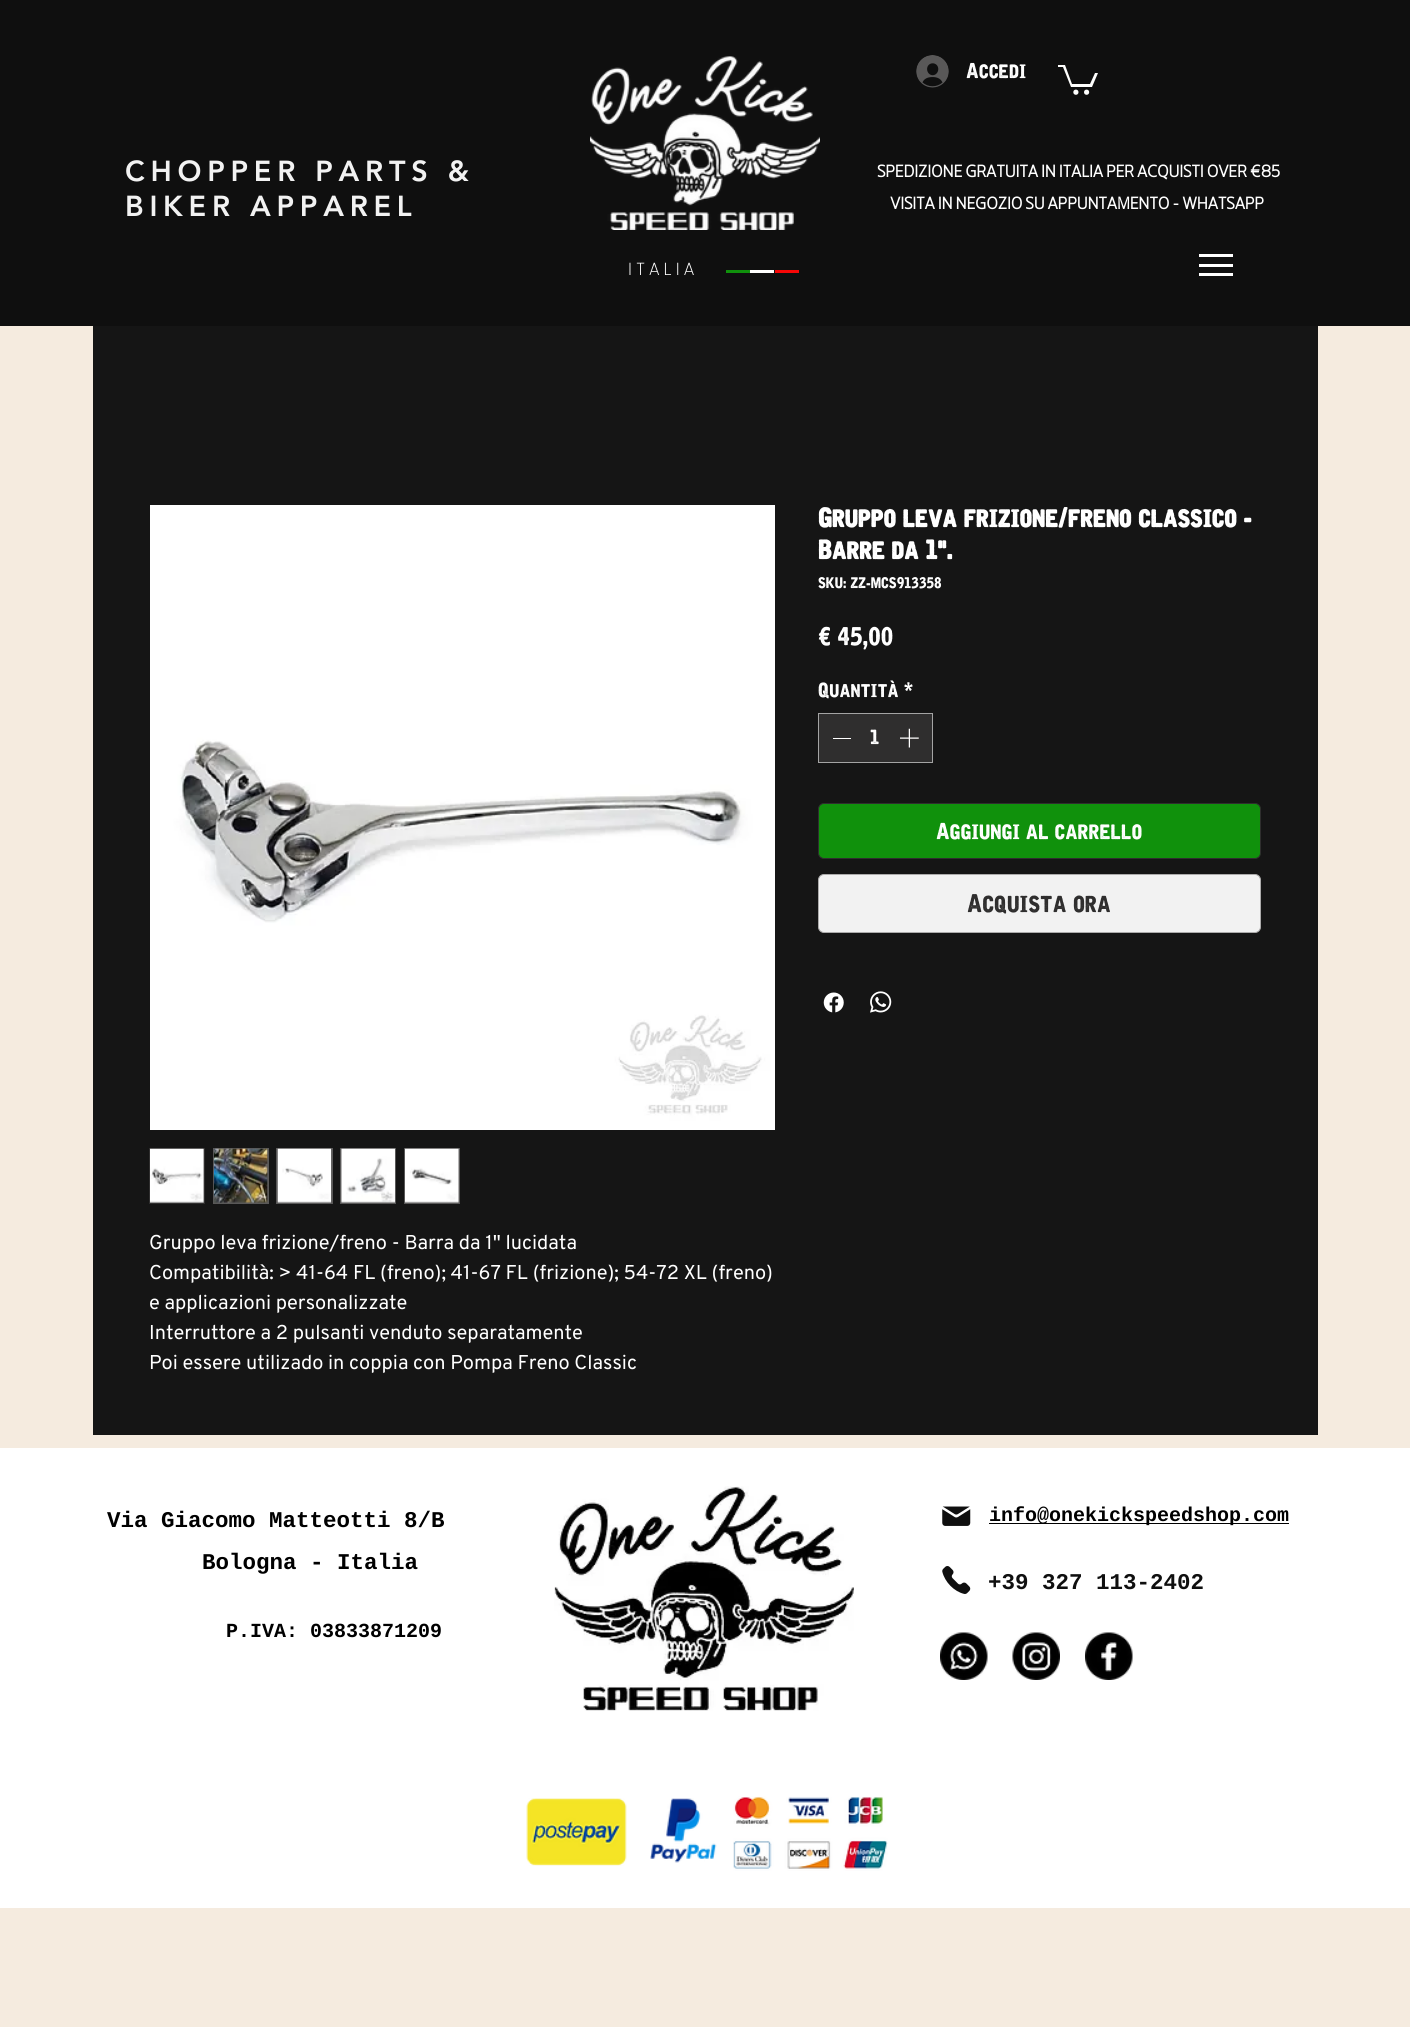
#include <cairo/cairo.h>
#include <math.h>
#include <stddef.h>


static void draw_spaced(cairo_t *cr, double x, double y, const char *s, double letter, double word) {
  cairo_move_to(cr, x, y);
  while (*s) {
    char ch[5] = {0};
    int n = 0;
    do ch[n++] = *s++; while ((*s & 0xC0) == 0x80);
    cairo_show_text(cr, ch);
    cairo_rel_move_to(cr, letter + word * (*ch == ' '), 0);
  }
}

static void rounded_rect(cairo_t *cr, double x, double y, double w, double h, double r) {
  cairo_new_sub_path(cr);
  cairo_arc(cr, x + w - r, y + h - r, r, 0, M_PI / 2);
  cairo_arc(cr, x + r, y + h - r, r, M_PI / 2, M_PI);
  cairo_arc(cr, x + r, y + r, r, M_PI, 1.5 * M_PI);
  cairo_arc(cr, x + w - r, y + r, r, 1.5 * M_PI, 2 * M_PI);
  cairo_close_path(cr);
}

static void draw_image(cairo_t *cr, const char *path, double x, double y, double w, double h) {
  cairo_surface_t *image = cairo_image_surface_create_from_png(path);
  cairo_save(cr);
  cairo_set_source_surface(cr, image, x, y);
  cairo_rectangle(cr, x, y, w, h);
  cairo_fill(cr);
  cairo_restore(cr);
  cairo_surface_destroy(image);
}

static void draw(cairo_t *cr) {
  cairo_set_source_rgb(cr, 245 / 255.0, 235 / 255.0, 223 / 255.0);
  cairo_paint(cr);
  cairo_set_source_rgb(cr, 15 / 255.0, 15 / 255.0, 15 / 255.0);
  cairo_rectangle(cr, 0, 0, 1410, 326);
  cairo_fill(cr);
  draw_image(cr, "images/1.png", 590, 56, 230, 174);
  draw_image(cr, "images/2.png", 916, 55, 33, 33);
  cairo_set_source_rgb(cr, 1, 1, 254 / 255.0);
  cairo_new_path(cr);
  cairo_move_to(cr, 1098, 73);
  cairo_line_to(cr, 1092, 87);
  cairo_line_to(cr, 1071, 87);
  cairo_line_to(cr, 1063, 67);
  cairo_line_to(cr, 1058, 67);
  cairo_line_to(cr, 1058, 65);
  cairo_line_to(cr, 1065, 65);
  cairo_line_to(cr, 1072, 84);
  cairo_line_to(cr, 1090, 84);
  cairo_line_to(cr, 1095, 73);
  cairo_fill(cr);
  cairo_arc(cr, 1086.6, 92.2, 2.6, 0, 2 * M_PI);
  cairo_fill(cr);
  cairo_arc(cr, 1075.9, 92.2, 2.6, 0, 2 * M_PI);
  cairo_fill(cr);
  cairo_set_source_rgb(cr, 16 / 255.0, 145 / 255.0, 12 / 255.0);
  cairo_rectangle(cr, 726, 270, 24, 3);
  cairo_fill(cr);
  cairo_set_source_rgb(cr, 1, 1, 254 / 255.0);
  cairo_rectangle(cr, 750, 270, 24, 3);
  cairo_fill(cr);
  cairo_set_source_rgb(cr, 247 / 255.0, 7 / 255.0, 7 / 255.0);
  cairo_rectangle(cr, 775, 270, 24, 3);
  cairo_fill(cr);
  cairo_set_source_rgb(cr, 1, 1, 1);
  cairo_rectangle(cr, 1199, 273, 34, 3);
  cairo_fill(cr);
  cairo_rectangle(cr, 1199, 254, 34, 3);
  cairo_fill(cr);
  cairo_rectangle(cr, 1199, 264, 34, 3);
  cairo_fill(cr);
  cairo_set_source_rgb(cr, 21 / 255.0, 21 / 255.0, 21 / 255.0);
  cairo_rectangle(cr, 93, 326, 1225, 1109);
  cairo_fill(cr);
  cairo_set_source_rgb(cr, 47 / 255.0, 46 / 255.0, 46 / 255.0);
  cairo_rectangle(cr, 818.5, 713.5, 114, 49);
  cairo_fill_preserve(cr);
  cairo_set_source_rgb(cr, 164 / 255.0, 164 / 255.0, 164 / 255.0);
  cairo_set_line_width(cr, 1);
  cairo_stroke(cr);
  cairo_set_source_rgb(cr, 1, 1, 1);
  cairo_rectangle(cr, 833, 738, 18, 1);
  cairo_fill(cr);
  draw_image(cr, "images/3.png", 900, 728, 19, 20);
  cairo_set_source_rgb(cr, 16 / 255.0, 145 / 255.0, 12 / 255.0);
  rounded_rect(cr, 818.5, 803.5, 442, 55, 5.5);
  cairo_fill_preserve(cr);
  cairo_set_source_rgb(cr, 47 / 255.0, 46 / 255.0, 46 / 255.0);
  cairo_stroke(cr);
  cairo_set_source_rgb(cr, 242 / 255.0, 242 / 255.0, 242 / 255.0);
  rounded_rect(cr, 818.5, 874.5, 442, 58, 5.5);
  cairo_fill_preserve(cr);
  cairo_set_source_rgb(cr, 172 / 255.0, 171 / 255.0, 171 / 255.0);
  cairo_stroke(cr);
  draw_image(cr, "images/4.png", 823, 992, 21, 21);
  draw_image(cr, "images/5.png", 870, 991, 22, 22);
  draw_image(cr, "images/6.png", 150, 505, 625, 625);
  cairo_set_source_rgb(cr, 89 / 255.0, 88 / 255.0, 88 / 255.0);
  cairo_rectangle(cr, 149.5, 1148.5, 55, 55);
  cairo_fill_preserve(cr);
  cairo_set_source_rgb(cr, 47 / 255.0, 46 / 255.0, 46 / 255.0);
  cairo_stroke(cr);
  draw_image(cr, "images/7.png", 150, 1148, 54, 55);
  cairo_set_source_rgb(cr, 89 / 255.0, 88 / 255.0, 88 / 255.0);
  cairo_rectangle(cr, 213, 1148, 56, 56);
  cairo_fill(cr);
  draw_image(cr, "images/8.png", 213, 1148, 55, 55);
  cairo_rectangle(cr, 276, 1148, 57, 56);
  cairo_fill(cr);
  draw_image(cr, "images/9.png", 277, 1148, 55, 55);
  cairo_rectangle(cr, 340, 1148, 56, 56);
  cairo_fill(cr);
  draw_image(cr, "images/10.png", 341, 1148, 54, 55);
  cairo_rectangle(cr, 404, 1148, 56, 56);
  cairo_fill(cr);
  draw_image(cr, "images/11.png", 405, 1148, 54, 55);
  cairo_set_source_rgb(cr, 1, 1, 1);
  cairo_rectangle(cr, 0, 1448, 1410, 460);
  cairo_fill(cr);
  draw_image(cr, "images/12.png", 554, 1486, 300, 225);
  draw_image(cr, "images/13.png", 942, 1506, 29, 20);
  cairo_set_source_rgb(cr, 0, 0, 0);
  cairo_rectangle(cr, 989, 1523, 300, 1);
  cairo_fill(cr);
  draw_image(cr, "images/14.png", 942, 1566, 29, 28);
  draw_image(cr, "images/15.png", 940, 1632, 48, 48);
  draw_image(cr, "images/16.png", 1012, 1632, 48, 48);
  draw_image(cr, "images/17.png", 1085, 1632, 48, 48);
  draw_image(cr, "images/18.png", 526, 1798, 101, 68);
  draw_image(cr, "images/19.png", 650, 1798, 67, 65);
  draw_image(cr, "images/20.png", 733, 1796, 155, 75);
  cairo_select_font_face(cr, "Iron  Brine", CAIRO_FONT_SLANT_NORMAL, CAIRO_FONT_WEIGHT_NORMAL);
  cairo_set_font_size(cr, 21);
  cairo_set_source_rgb(cr, 1, 1, 1);
  cairo_move_to(cr, 966, 78);
  cairo_show_text(cr, "Accedi");
  cairo_select_font_face(cr, "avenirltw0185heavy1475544 Black", CAIRO_FONT_SLANT_NORMAL, CAIRO_FONT_WEIGHT_NORMAL);
  cairo_set_font_size(cr, 28.75);
  cairo_set_source_rgb(cr, 242 / 255.0, 242 / 255.0, 242 / 255.0);
  draw_spaced(cr, 125, 181, "CHOPPER PARTS &", 5.75, 0);
  draw_spaced(cr, 125, 216, "BIKER APPAREL", 5.75, 0);
  cairo_select_font_face(cr, "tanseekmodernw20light", CAIRO_FONT_SLANT_NORMAL, CAIRO_FONT_WEIGHT_BOLD);
  cairo_set_font_size(cr, 25);
  cairo_set_source_rgb(cr, 1, 1, 1);
  cairo_move_to(cr, 877, 177);
  cairo_show_text(cr, "SPEDIZIONE GRATUITA IN ITALIA PER ACQUISTI OVER €85");
  cairo_move_to(cr, 890, 209);
  cairo_show_text(cr, "VISITA IN NEGOZIO SU APPUNTAMENTO - WHATSAPP");
  cairo_select_font_face(cr, "tanseekmodernw20light Light", CAIRO_FONT_SLANT_NORMAL, CAIRO_FONT_WEIGHT_NORMAL);
  cairo_set_font_size(cr, 26.25);
  draw_spaced(cr, 628, 275, "ITALIA", 4, 0);
  cairo_select_font_face(cr, "Iron  Brine", CAIRO_FONT_SLANT_NORMAL, CAIRO_FONT_WEIGHT_BOLD);
  cairo_move_to(cr, 818, 527);
  cairo_show_text(cr, "Gruppo leva frizione/freno classico -");
  cairo_move_to(cr, 818, 559);
  cairo_show_text(cr, "Barre da 1\".");
  cairo_select_font_face(cr, "Iron  Brine", CAIRO_FONT_SLANT_NORMAL, CAIRO_FONT_WEIGHT_NORMAL);
  cairo_set_font_size(cr, 15);
  cairo_move_to(cr, 818, 588);
  cairo_show_text(cr, "SKU: ZZ-MCS913358");
  cairo_set_font_size(cr, 25);
  cairo_move_to(cr, 818, 645);
  cairo_show_text(cr, "€ 45,00");
  cairo_set_font_size(cr, 20);
  cairo_move_to(cr, 818, 697);
  cairo_show_text(cr, "Quantità *");
  cairo_move_to(cr, 870, 744);
  cairo_show_text(cr, "1");
  cairo_set_font_size(cr, 22.5);
  cairo_move_to(cr, 936, 839);
  cairo_show_text(cr, "Aggiungi al carrello");
  cairo_set_font_size(cr, 25);
  cairo_set_source_rgb(cr, 47 / 255.0, 46 / 255.0, 46 / 255.0);
  cairo_move_to(cr, 967, 912);
  cairo_show_text(cr, "Acquista ora");
  cairo_select_font_face(cr, "Overpass", CAIRO_FONT_SLANT_NORMAL, CAIRO_FONT_WEIGHT_NORMAL);
  cairo_set_font_size(cr, 20);
  cairo_set_source_rgb(cr, 1, 1, 1);
  cairo_move_to(cr, 149, 1249);
  cairo_show_text(cr, "Gruppo leva frizione/freno - Barra da 1\" lucidata");
  cairo_move_to(cr, 149, 1279);
  cairo_show_text(cr, "Compatibilità: > 41-64 FL (freno); 41-67 FL (frizione); 54-72 XL (freno)");
  cairo_move_to(cr, 149, 1309);
  cairo_show_text(cr, "e applicazioni personalizzate");
  cairo_move_to(cr, 149, 1339);
  cairo_show_text(cr, "Interruttore a 2 pulsanti venduto separatamente");
  cairo_move_to(cr, 149, 1369);
  cairo_show_text(cr, "Poi essere utilizado in coppia con Pompa Freno Classic");
  cairo_select_font_face(cr, "Liberation Mono", CAIRO_FONT_SLANT_NORMAL, CAIRO_FONT_WEIGHT_BOLD);
  cairo_set_font_size(cr, 22.5);
  cairo_set_source_rgb(cr, 0, 0, 0);
  cairo_move_to(cr, 107, 1527);
  cairo_show_text(cr, "Via Giacomo Matteotti 8/B");
  cairo_move_to(cr, 202, 1569);
  cairo_show_text(cr, "Bologna - Italia");
  cairo_set_font_size(cr, 20);
  cairo_move_to(cr, 989, 1521);
  cairo_show_text(cr, "info@onekickspeedshop.com");
  cairo_set_font_size(cr, 22.5);
  cairo_set_source_rgb(cr, 15 / 255.0, 15 / 255.0, 15 / 255.0);
  cairo_move_to(cr, 988, 1589);
  cairo_show_text(cr, "+39 327 113-2402");
  cairo_set_font_size(cr, 20);
  cairo_set_source_rgb(cr, 0, 0, 0);
  cairo_move_to(cr, 226, 1637);
  cairo_show_text(cr, "P.IVA: 03833871209");
}

int main(void) {
  cairo_surface_t *surface = cairo_image_surface_create(CAIRO_FORMAT_RGB24, 1410, 2027);
  cairo_t *cr = cairo_create(surface);
  cairo_font_options_t *options = cairo_font_options_create();
  cairo_font_options_set_hint_metrics(options, CAIRO_HINT_METRICS_OFF);
  cairo_font_options_set_hint_style(options, CAIRO_HINT_STYLE_NONE);
  cairo_set_font_options(cr, options);
  cairo_set_miter_limit(cr, 4);
  draw(cr);
  cairo_surface_write_to_png(surface, "out.png");
  cairo_font_options_destroy(options);
  cairo_destroy(cr);
  cairo_surface_destroy(surface);
  return 0;
}
